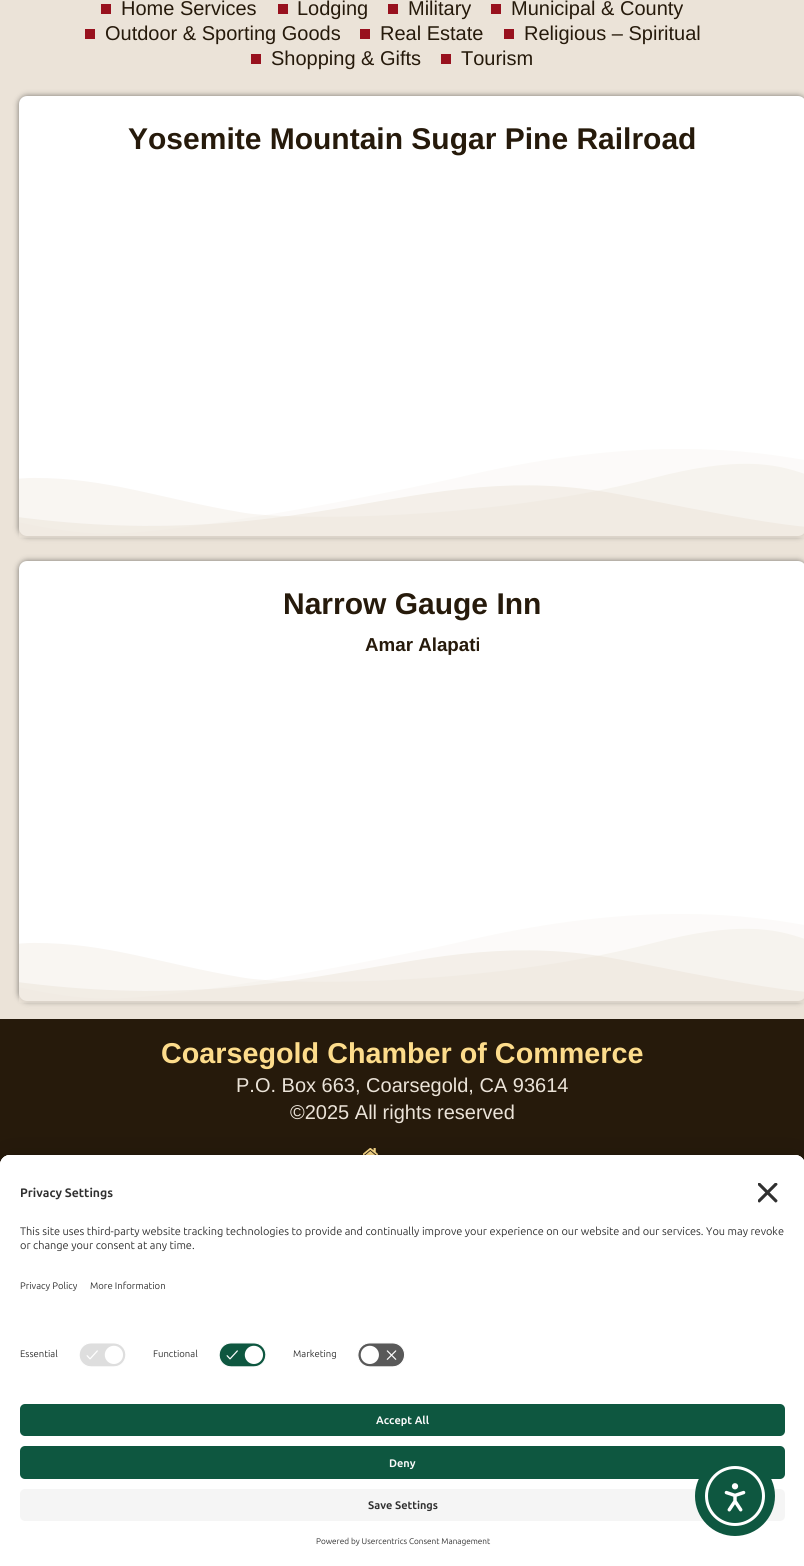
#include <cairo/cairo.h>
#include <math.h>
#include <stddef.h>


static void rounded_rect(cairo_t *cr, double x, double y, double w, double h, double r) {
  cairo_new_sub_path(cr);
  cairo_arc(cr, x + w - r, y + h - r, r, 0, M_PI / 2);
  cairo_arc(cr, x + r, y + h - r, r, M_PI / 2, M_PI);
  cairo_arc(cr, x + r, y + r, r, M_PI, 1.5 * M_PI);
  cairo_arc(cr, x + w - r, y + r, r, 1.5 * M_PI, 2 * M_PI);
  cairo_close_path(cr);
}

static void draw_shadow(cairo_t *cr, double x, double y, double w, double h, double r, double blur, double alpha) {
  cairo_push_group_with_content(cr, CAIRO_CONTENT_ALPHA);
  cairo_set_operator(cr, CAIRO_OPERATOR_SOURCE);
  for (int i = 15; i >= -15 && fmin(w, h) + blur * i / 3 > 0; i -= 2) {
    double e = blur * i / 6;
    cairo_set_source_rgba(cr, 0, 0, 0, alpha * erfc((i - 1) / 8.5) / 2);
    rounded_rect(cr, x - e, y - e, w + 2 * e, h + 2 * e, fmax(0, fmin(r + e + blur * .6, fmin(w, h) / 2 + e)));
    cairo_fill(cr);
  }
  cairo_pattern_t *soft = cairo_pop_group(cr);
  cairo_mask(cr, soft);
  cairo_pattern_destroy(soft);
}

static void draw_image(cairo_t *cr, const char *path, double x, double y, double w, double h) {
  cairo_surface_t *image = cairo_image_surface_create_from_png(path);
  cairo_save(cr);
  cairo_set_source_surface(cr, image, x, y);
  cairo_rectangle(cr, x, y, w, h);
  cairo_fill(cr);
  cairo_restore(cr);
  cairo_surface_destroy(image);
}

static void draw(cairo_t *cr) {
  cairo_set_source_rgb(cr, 235 / 255.0, 227 / 255.0, 216 / 255.0);
  cairo_paint(cr);
  cairo_set_source_rgb(cr, 152 / 255.0, 17 / 255.0, 30 / 255.0);
  cairo_rectangle(cr, 101, 4, 10, 10);
  cairo_fill(cr);
  cairo_rectangle(cr, 278, 4, 10, 10);
  cairo_fill(cr);
  cairo_rectangle(cr, 388, 4, 10, 10);
  cairo_fill(cr);
  cairo_rectangle(cr, 491, 4, 10, 10);
  cairo_fill(cr);
  cairo_rectangle(cr, 85, 29, 10, 10);
  cairo_fill(cr);
  cairo_rectangle(cr, 360, 29, 10, 10);
  cairo_fill(cr);
  cairo_rectangle(cr, 504, 29, 10, 10);
  cairo_fill(cr);
  cairo_rectangle(cr, 251, 54, 10, 10);
  cairo_fill(cr);
  cairo_rectangle(cr, 441, 54, 10, 10);
  cairo_fill(cr);
  cairo_set_source_rgb(cr, 0, 0, 0);
  draw_shadow(cr, 19, 96, 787, 440, 8, 3, 0.5);
  cairo_set_source_rgb(cr, 1, 1, 1);
  rounded_rect(cr, 19, 96, 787, 440, 8);
  cairo_fill(cr);
  draw_image(cr, "images/1.png", 19, 449, 785, 89);
  cairo_set_source_rgb(cr, 0, 0, 0);
  draw_shadow(cr, 19, 561, 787, 440, 8, 3, 0.5);
  cairo_set_source_rgb(cr, 1, 1, 1);
  rounded_rect(cr, 19, 561, 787, 440, 8);
  cairo_fill(cr);
  draw_image(cr, "images/1.png", 19, 914, 785, 89);
  draw_image(cr, "images/2.png", 0, 1019, 804, 146);
  draw_image(cr, "images/3.png", 363, 1148, 16, 7);
  cairo_set_source_rgb(cr, 0, 0, 0);
  draw_shadow(cr, 0, 1180, 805, 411, 10, 17.5, 0.3);
  draw_shadow(cr, 0, 1161, 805, 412, 10, 16, 0.22);
  cairo_set_source_rgb(cr, 1, 1, 1);
  cairo_new_path(cr);
  cairo_move_to(cr, 10, 1155);
  cairo_line_to(cr, 795, 1155);
  cairo_curve_to(cr, 800.5, 1155, 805, 1159.5, 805, 1165);
  cairo_line_to(cr, 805, 1566);
  cairo_line_to(cr, 0, 1566);
  cairo_line_to(cr, 0, 1165);
  cairo_curve_to(cr, 0, 1159.5, 4.5, 1155, 10, 1155);
  cairo_close_path(cr);
  cairo_fill(cr);
  cairo_new_path(cr);
  cairo_move_to(cr, 10, 1155);
  cairo_line_to(cr, 795, 1155);
  cairo_curve_to(cr, 800.5, 1155, 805, 1159.5, 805, 1165);
  cairo_line_to(cr, 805, 1389);
  cairo_line_to(cr, 0, 1389);
  cairo_line_to(cr, 0, 1165);
  cairo_curve_to(cr, 0, 1159.5, 4.5, 1155, 10, 1155);
  cairo_close_path(cr);
  cairo_fill(cr);
  cairo_new_path(cr);
  cairo_move_to(cr, 10, 1155);
  cairo_line_to(cr, 795, 1155);
  cairo_curve_to(cr, 800.5, 1155, 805, 1159.5, 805, 1165);
  cairo_line_to(cr, 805, 1334);
  cairo_line_to(cr, 0, 1334);
  cairo_line_to(cr, 0, 1165);
  cairo_curve_to(cr, 0, 1159.5, 4.5, 1155, 10, 1155);
  cairo_close_path(cr);
  cairo_fill(cr);
  draw_image(cr, "images/4.png", 758, 1183, 20, 20);
  draw_image(cr, "images/5.png", 79, 1343, 47, 24);
  draw_image(cr, "images/6.png", 219, 1342, 47, 25);
  draw_image(cr, "images/7.png", 357, 1342, 48, 25);
  cairo_set_source_rgb(cr, 14 / 255.0, 87 / 255.0, 64 / 255.0);
  rounded_rect(cr, 20, 1404, 765, 32, 5);
  cairo_fill(cr);
  rounded_rect(cr, 20, 1446, 765, 33, 5);
  cairo_fill(cr);
  cairo_set_source_rgb(cr, 245 / 255.0, 245 / 255.0, 245 / 255.0);
  rounded_rect(cr, 20, 1489, 765, 32, 5);
  cairo_fill(cr);
  cairo_set_source_rgb(cr, 14 / 255.0, 87 / 255.0, 64 / 255.0);
  cairo_arc(cr, 735, 1496, 40, 0, 2 * M_PI);
  cairo_fill(cr);
  cairo_arc(cr, 735, 1496, 28.5, 0, 2 * M_PI);
  cairo_set_source_rgb(cr, 1, 1, 1);
  cairo_set_line_width(cr, 3);
  cairo_stroke(cr);
  draw_image(cr, "images/8.png", 724, 1483, 22, 29);
  cairo_select_font_face(cr, "Liberation Sans", CAIRO_FONT_SLANT_NORMAL, CAIRO_FONT_WEIGHT_NORMAL);
  cairo_set_font_size(cr, 20);
  cairo_set_source_rgb(cr, 38 / 255.0, 26 / 255.0, 11 / 255.0);
  cairo_move_to(cr, 121, 15);
  cairo_show_text(cr, "Home Services");
  cairo_move_to(cr, 297, 15);
  cairo_show_text(cr, "Lodging");
  cairo_move_to(cr, 408, 15);
  cairo_show_text(cr, "Military");
  cairo_move_to(cr, 511, 15);
  cairo_show_text(cr, "Municipal & County");
  cairo_move_to(cr, 105, 40);
  cairo_show_text(cr, "Outdoor & Sporting Goods");
  cairo_move_to(cr, 380, 40);
  cairo_show_text(cr, "Real Estate");
  cairo_move_to(cr, 524, 40);
  cairo_show_text(cr, "Religious – Spiritual");
  cairo_move_to(cr, 271, 65);
  cairo_show_text(cr, "Shopping & Gifts");
  cairo_move_to(cr, 461, 65);
  cairo_show_text(cr, "Tourism");
  cairo_select_font_face(cr, "Liberation Sans", CAIRO_FONT_SLANT_NORMAL, CAIRO_FONT_WEIGHT_BOLD);
  cairo_set_font_size(cr, 30);
  cairo_move_to(cr, 128, 149);
  cairo_show_text(cr, "Yosemite Mountain Sugar Pine Railroad");
  cairo_move_to(cr, 283, 614);
  cairo_show_text(cr, "Narrow Gauge Inn");
  cairo_set_font_size(cr, 18.75);
  cairo_move_to(cr, 365, 651);
  cairo_show_text(cr, "Amar Alapati");
  cairo_set_font_size(cr, 28.75);
  cairo_set_source_rgb(cr, 253 / 255.0, 220 / 255.0, 139 / 255.0);
  cairo_move_to(cr, 161, 1063);
  cairo_show_text(cr, "Coarsegold Chamber of Commerce");
  cairo_select_font_face(cr, "Liberation Sans", CAIRO_FONT_SLANT_NORMAL, CAIRO_FONT_WEIGHT_NORMAL);
  cairo_set_font_size(cr, 20);
  cairo_set_source_rgb(cr, 235 / 255.0, 227 / 255.0, 216 / 255.0);
  cairo_move_to(cr, 236, 1092);
  cairo_show_text(cr, "P.O. Box 663, Coarsegold, CA 93614");
  cairo_move_to(cr, 290, 1119);
  cairo_show_text(cr, "©2025 All rights reserved");
  cairo_select_font_face(cr, "Ubuntu", CAIRO_FONT_SLANT_NORMAL, CAIRO_FONT_WEIGHT_BOLD);
  cairo_set_font_size(cr, 12.25);
  cairo_set_source_rgb(cr, 48 / 255.0, 48 / 255.0, 48 / 255.0);
  cairo_move_to(cr, 20, 1197);
  cairo_show_text(cr, "Privacy Settings");
  cairo_select_font_face(cr, "Ubuntu", CAIRO_FONT_SLANT_NORMAL, CAIRO_FONT_WEIGHT_NORMAL);
  cairo_set_font_size(cr, 10.95);
  cairo_move_to(cr, 20, 1235);
  cairo_show_text(cr, "This site uses third-party website tracking technologies to provide and continually improve your experience on our website and our services. You may revoke");
  cairo_move_to(cr, 20, 1249);
  cairo_show_text(cr, "or change your consent at any time.");
  cairo_set_font_size(cr, 9.5);
  cairo_move_to(cr, 20, 1289);
  cairo_show_text(cr, "Privacy Policy");
  cairo_move_to(cr, 90, 1289);
  cairo_show_text(cr, "More Information");
  cairo_move_to(cr, 20, 1357);
  cairo_show_text(cr, "Essential");
  cairo_move_to(cr, 153, 1357);
  cairo_show_text(cr, "Functional");
  cairo_move_to(cr, 293, 1357);
  cairo_show_text(cr, "Marketing");
  cairo_select_font_face(cr, "Ubuntu", CAIRO_FONT_SLANT_NORMAL, CAIRO_FONT_WEIGHT_BOLD);
  cairo_set_font_size(cr, 10.95);
  cairo_set_source_rgb(cr, 250 / 255.0, 250 / 255.0, 250 / 255.0);
  cairo_move_to(cr, 376, 1424);
  cairo_show_text(cr, "Accept All");
  cairo_move_to(cr, 389, 1467);
  cairo_show_text(cr, "Deny");
  cairo_set_source_rgb(cr, 48 / 255.0, 48 / 255.0, 48 / 255.0);
  cairo_move_to(cr, 368, 1509);
  cairo_show_text(cr, "Save Settings");
  cairo_select_font_face(cr, "Ubuntu", CAIRO_FONT_SLANT_NORMAL, CAIRO_FONT_WEIGHT_NORMAL);
  cairo_set_font_size(cr, 8.2);
  cairo_move_to(cr, 316, 1544);
  cairo_show_text(cr, "Powered by Usercentrics Consent Management");
}

int main(void) {
  cairo_surface_t *surface = cairo_image_surface_create(CAIRO_FORMAT_RGB24, 804, 1566);
  cairo_t *cr = cairo_create(surface);
  cairo_font_options_t *options = cairo_font_options_create();
  cairo_font_options_set_hint_metrics(options, CAIRO_HINT_METRICS_OFF);
  cairo_font_options_set_hint_style(options, CAIRO_HINT_STYLE_NONE);
  cairo_set_font_options(cr, options);
  cairo_set_miter_limit(cr, 4);
  draw(cr);
  cairo_surface_write_to_png(surface, "out.png");
  cairo_font_options_destroy(options);
  cairo_destroy(cr);
  cairo_surface_destroy(surface);
  return 0;
}
